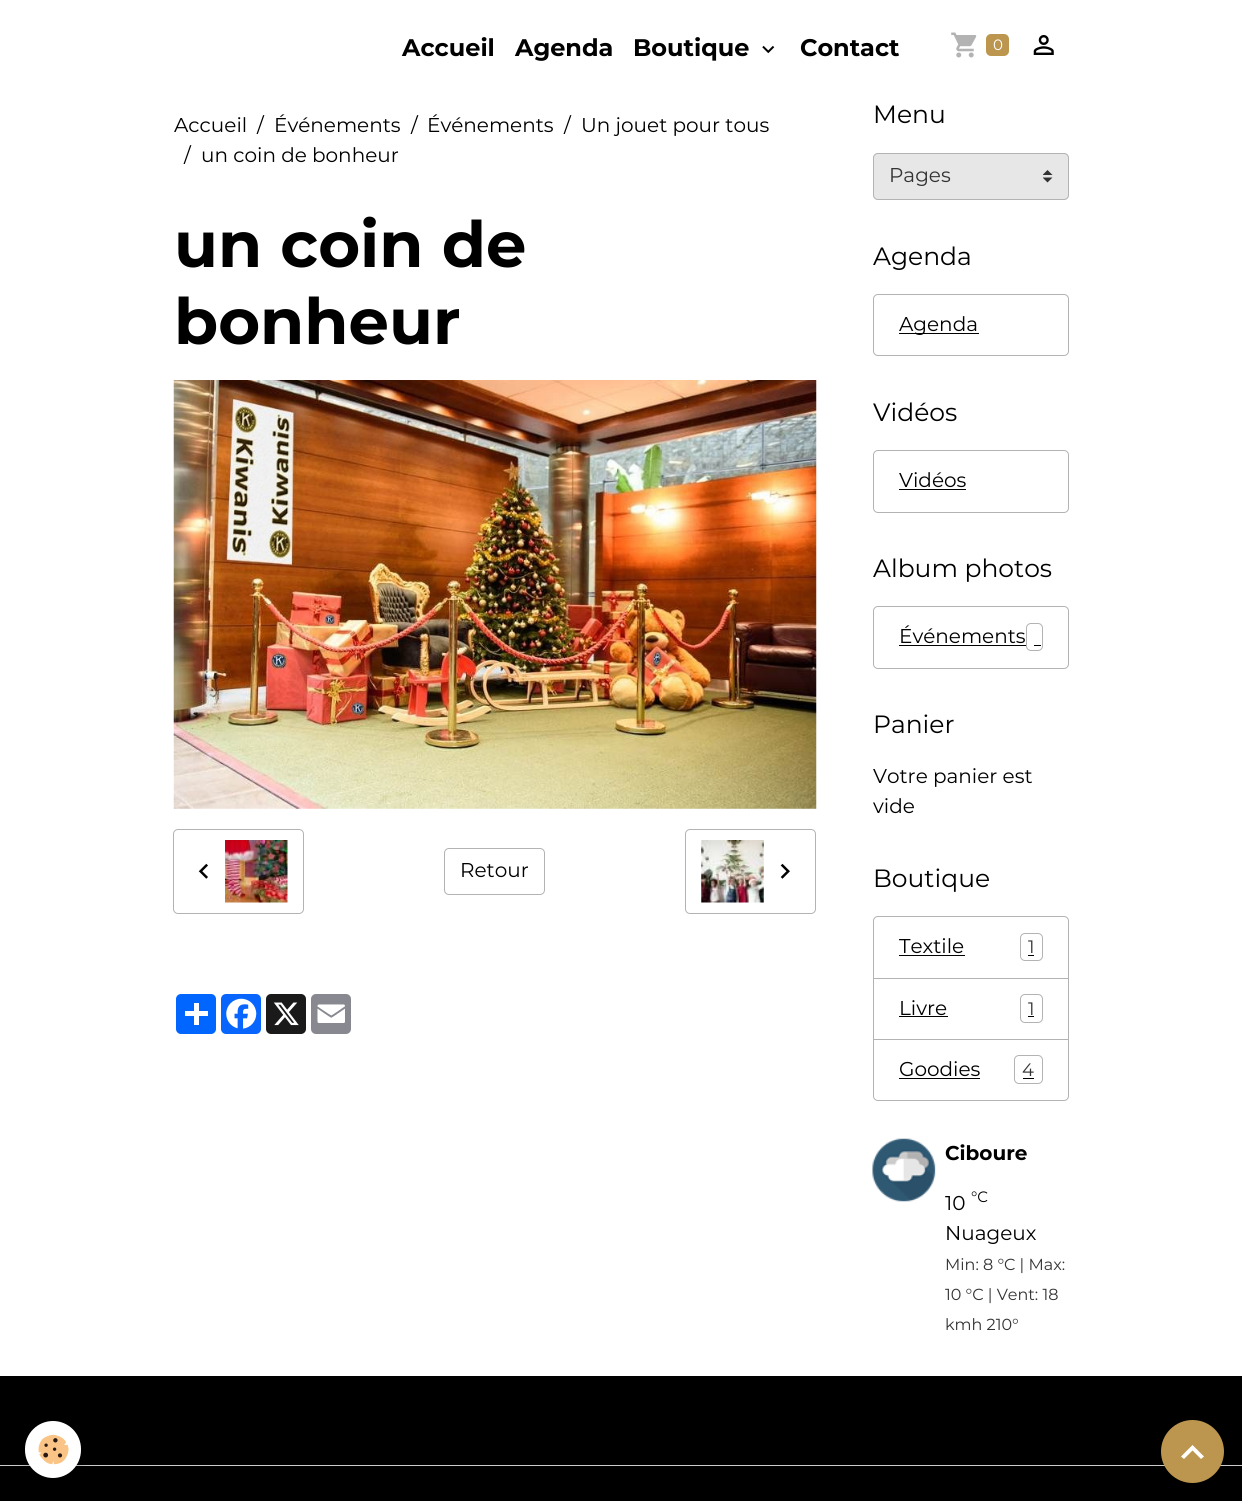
#include <cairo/cairo.h>
#include <math.h>
#include <stddef.h>


static void rounded_rect(cairo_t *cr, double x, double y, double w, double h, double r) {
  cairo_new_sub_path(cr);
  cairo_arc(cr, x + w - r, y + h - r, r, 0, M_PI / 2);
  cairo_arc(cr, x + r, y + h - r, r, M_PI / 2, M_PI);
  cairo_arc(cr, x + r, y + r, r, M_PI, 1.5 * M_PI);
  cairo_arc(cr, x + w - r, y + r, r, 1.5 * M_PI, 2 * M_PI);
  cairo_close_path(cr);
}

static void draw_shadow(cairo_t *cr, double x, double y, double w, double h, double r, double blur, double alpha) {
  cairo_push_group_with_content(cr, CAIRO_CONTENT_ALPHA);
  cairo_set_operator(cr, CAIRO_OPERATOR_SOURCE);
  for (int i = 15; i >= -15 && fmin(w, h) + blur * i / 3 > 0; i -= 2) {
    double e = blur * i / 6;
    cairo_set_source_rgba(cr, 0, 0, 0, alpha * erfc((i - 1) / 8.5) / 2);
    rounded_rect(cr, x - e, y - e, w + 2 * e, h + 2 * e, fmax(0, fmin(r + e + blur * .6, fmin(w, h) / 2 + e)));
    cairo_fill(cr);
  }
  cairo_pattern_t *soft = cairo_pop_group(cr);
  cairo_mask(cr, soft);
  cairo_pattern_destroy(soft);
}

static void draw_image(cairo_t *cr, const char *path, double x, double y, double w, double h) {
  cairo_surface_t *image = cairo_image_surface_create_from_png(path);
  cairo_save(cr);
  cairo_set_source_surface(cr, image, x, y);
  cairo_rectangle(cr, x, y, w, h);
  cairo_fill(cr);
  cairo_restore(cr);
  cairo_surface_destroy(image);
}

static void draw(cairo_t *cr) {
  cairo_set_source_rgb(cr, 1, 1, 1);
  cairo_paint(cr);
  draw_image(cr, "images/1.png", 762, 45, 13, 9);
  draw_image(cr, "images/2.png", 951, 32, 26, 26);
  cairo_set_source_rgb(cr, 188 / 255.0, 150 / 255.0, 79 / 255.0);
  rounded_rect(cr, 986, 34, 23, 22, 5);
  cairo_fill(cr);
  draw_image(cr, "images/3.png", 1033, 35, 21, 20);
  draw_image(cr, "images/4.png", 173, 380, 644, 429);
  rounded_rect(cr, 173.5, 829.5, 130, 84, 4.5);
  cairo_set_source_rgb(cr, 179 / 255.0, 179 / 255.0, 179 / 255.0);
  cairo_set_line_width(cr, 1);
  cairo_stroke(cr);
  draw_image(cr, "images/5.png", 198, 863, 10, 16);
  draw_image(cr, "images/6.png", 225, 840, 63, 63);
  rounded_rect(cr, 444.5, 848.5, 100, 46, 4.5);
  cairo_stroke(cr);
  rounded_rect(cr, 685.5, 829.5, 130, 84, 4.5);
  cairo_stroke(cr);
  draw_image(cr, "images/7.png", 701, 840, 63, 63);
  draw_image(cr, "images/8.png", 780, 863, 10, 16);
  cairo_set_source_rgb(cr, 1 / 255.0, 102 / 255.0, 1);
  rounded_rect(cr, 176, 994, 40, 40, 5);
  cairo_fill(cr);
  cairo_set_source_rgb(cr, 1, 1, 1);
  cairo_rectangle(cr, 194, 1003, 5, 22);
  cairo_fill(cr);
  cairo_rectangle(cr, 185, 1011, 23, 5);
  cairo_fill(cr);
  cairo_set_source_rgb(cr, 8 / 255.0, 102 / 255.0, 1);
  rounded_rect(cr, 221, 994, 40, 40, 5);
  cairo_fill(cr);
  draw_image(cr, "images/9.png", 226, 998, 31, 31);
  cairo_set_source_rgb(cr, 26 / 255.0, 26 / 255.0, 26 / 255.0);
  rounded_rect(cr, 266, 994, 40, 40, 5);
  cairo_fill(cr);
  draw_image(cr, "images/10.png", 273, 1002, 26, 24);
  cairo_set_source_rgb(cr, 136 / 255.0, 137 / 255.0, 144 / 255.0);
  rounded_rect(cr, 311, 994, 40, 40, 5);
  cairo_fill(cr);
  draw_image(cr, "images/11.png", 317, 1004, 28, 19);
  cairo_set_source_rgb(cr, 231 / 255.0, 231 / 255.0, 231 / 255.0);
  rounded_rect(cr, 873, 153, 196, 47, 5);
  cairo_fill(cr);
  draw_image(cr, "images/12.png", 1043, 170, 10, 13);
  rounded_rect(cr, 873.5, 153.5, 195, 46, 4.5);
  cairo_set_source_rgb(cr, 179 / 255.0, 179 / 255.0, 179 / 255.0);
  cairo_stroke(cr);
  rounded_rect(cr, 873.5, 294.5, 195, 61, 4.5);
  cairo_stroke(cr);
  cairo_set_source_rgb(cr, 0, 0, 0);
  cairo_rectangle(cr, 899, 333, 80, 1);
  cairo_fill(cr);
  rounded_rect(cr, 873.5, 450.5, 195, 62, 4.5);
  cairo_set_source_rgb(cr, 179 / 255.0, 179 / 255.0, 179 / 255.0);
  cairo_stroke(cr);
  cairo_set_source_rgb(cr, 0, 0, 0);
  cairo_rectangle(cr, 899, 489, 67, 1);
  cairo_fill(cr);
  rounded_rect(cr, 873.5, 606.5, 195, 62, 4.5);
  cairo_set_source_rgb(cr, 179 / 255.0, 179 / 255.0, 179 / 255.0);
  cairo_stroke(cr);
  cairo_set_source_rgb(cr, 0, 0, 0);
  cairo_rectangle(cr, 899, 645, 127, 1);
  cairo_fill(cr);
  rounded_rect(cr, 1026.5, 623.5, 16, 27, 4.5);
  cairo_set_source_rgb(cr, 179 / 255.0, 179 / 255.0, 179 / 255.0);
  cairo_stroke(cr);
  cairo_set_source_rgb(cr, 0, 0, 0);
  cairo_rectangle(cr, 1034, 645, 7, 1);
  cairo_fill(cr);
  cairo_new_path(cr);
  cairo_move_to(cr, 878, 916.5);
  cairo_line_to(cr, 1064, 916.5);
  cairo_curve_to(cr, 1066.5, 916.5, 1068.5, 918.5, 1068.5, 921);
  cairo_line_to(cr, 1068.5, 978.5);
  cairo_line_to(cr, 873.5, 978.5);
  cairo_line_to(cr, 873.5, 921);
  cairo_curve_to(cr, 873.5, 918.5, 875.5, 916.5, 878, 916.5);
  cairo_close_path(cr);
  cairo_set_source_rgb(cr, 179 / 255.0, 179 / 255.0, 179 / 255.0);
  cairo_stroke(cr);
  cairo_set_source_rgb(cr, 0, 0, 0);
  cairo_rectangle(cr, 899, 955, 66, 1);
  cairo_fill(cr);
  rounded_rect(cr, 1020.5, 933.5, 22, 27, 4.5);
  cairo_set_source_rgb(cr, 179 / 255.0, 179 / 255.0, 179 / 255.0);
  cairo_stroke(cr);
  cairo_set_source_rgb(cr, 0, 0, 0);
  cairo_rectangle(cr, 1028, 955, 6, 1);
  cairo_fill(cr);
  cairo_rectangle(cr, 873.5, 978.5, 195, 61);
  cairo_set_source_rgb(cr, 179 / 255.0, 179 / 255.0, 179 / 255.0);
  cairo_stroke(cr);
  cairo_set_source_rgb(cr, 0, 0, 0);
  cairo_rectangle(cr, 899, 1016, 49, 1);
  cairo_fill(cr);
  rounded_rect(cr, 1020.5, 994.5, 22, 28, 4.5);
  cairo_set_source_rgb(cr, 179 / 255.0, 179 / 255.0, 179 / 255.0);
  cairo_stroke(cr);
  cairo_set_source_rgb(cr, 0, 0, 0);
  cairo_rectangle(cr, 1028, 1016, 6, 1);
  cairo_fill(cr);
  cairo_new_path(cr);
  cairo_move_to(cr, 873.5, 1039.5);
  cairo_line_to(cr, 1068.5, 1039.5);
  cairo_line_to(cr, 1068.5, 1096);
  cairo_curve_to(cr, 1068.5, 1098.5, 1066.5, 1100.5, 1064, 1100.5);
  cairo_line_to(cr, 878, 1100.5);
  cairo_curve_to(cr, 875.5, 1100.5, 873.5, 1098.5, 873.5, 1096);
  cairo_close_path(cr);
  cairo_set_source_rgb(cr, 179 / 255.0, 179 / 255.0, 179 / 255.0);
  cairo_stroke(cr);
  cairo_set_source_rgb(cr, 0, 0, 0);
  cairo_rectangle(cr, 899, 1078, 81, 1);
  cairo_fill(cr);
  rounded_rect(cr, 1014.5, 1055.5, 28, 28, 4.5);
  cairo_set_source_rgb(cr, 179 / 255.0, 179 / 255.0, 179 / 255.0);
  cairo_stroke(cr);
  cairo_set_source_rgb(cr, 0, 0, 0);
  cairo_rectangle(cr, 1023, 1078, 11, 1);
  cairo_fill(cr);
  draw_image(cr, "images/13.png", 872, 1138, 64, 64);
  cairo_rectangle(cr, 0, 1376, 1242, 125);
  cairo_fill(cr);
  cairo_set_source_rgb(cr, 204 / 255.0, 204 / 255.0, 204 / 255.0);
  cairo_rectangle(cr, 0, 1465, 1242, 1);
  cairo_fill(cr);
  cairo_set_source_rgb(cr, 0, 0, 0);
  draw_shadow(cr, 25, 1425, 56, 56, 28, 6, 0.24);
  cairo_set_source_rgb(cr, 1, 1, 1);
  rounded_rect(cr, 25, 1421, 56, 57, 28);
  cairo_fill(cr);
  draw_image(cr, "images/14.png", 38, 1434, 31, 31);
  cairo_set_source_rgb(cr, 188 / 255.0, 150 / 255.0, 79 / 255.0);
  cairo_arc(cr, 1192.5, 1451.5, 31.5, 0, 2 * M_PI);
  cairo_fill(cr);
  cairo_set_source_rgb(cr, 1, 1, 1);
  cairo_new_path(cr);
  cairo_move_to(cr, 1192.5, 1445);
  cairo_line_to(cr, 1204, 1456.5);
  cairo_line_to(cr, 1201, 1459);
  cairo_line_to(cr, 1192.5, 1450.5);
  cairo_line_to(cr, 1184, 1459);
  cairo_line_to(cr, 1181, 1456.5);
  cairo_close_path(cr);
  cairo_fill(cr);
  cairo_select_font_face(cr, "Montserrat", CAIRO_FONT_SLANT_NORMAL, CAIRO_FONT_WEIGHT_BOLD);
  cairo_set_font_size(cr, 24);
  cairo_set_source_rgb(cr, 0, 0, 0);
  cairo_move_to(cr, 402, 56);
  cairo_show_text(cr, "Accueil");
  cairo_move_to(cr, 515, 56);
  cairo_show_text(cr, "Agenda");
  cairo_move_to(cr, 633, 56);
  cairo_show_text(cr, "Boutique");
  cairo_move_to(cr, 800, 56);
  cairo_show_text(cr, "Contact");
  cairo_select_font_face(cr, "Montserrat", CAIRO_FONT_SLANT_NORMAL, CAIRO_FONT_WEIGHT_NORMAL);
  cairo_set_font_size(cr, 15);
  cairo_set_source_rgb(cr, 1, 1, 1);
  cairo_move_to(cr, 993, 50);
  cairo_show_text(cr, "0");
  cairo_set_font_size(cr, 20);
  cairo_set_source_rgb(cr, 0, 0, 0);
  cairo_move_to(cr, 174, 132);
  cairo_show_text(cr, "Accueil");
  cairo_move_to(cr, 257, 132);
  cairo_show_text(cr, "/");
  cairo_move_to(cr, 274, 132);
  cairo_show_text(cr, "Événements");
  cairo_move_to(cr, 411, 132);
  cairo_show_text(cr, "/");
  cairo_move_to(cr, 427, 132);
  cairo_show_text(cr, "Événements");
  cairo_move_to(cr, 564, 132);
  cairo_show_text(cr, "/");
  cairo_move_to(cr, 581, 132);
  cairo_show_text(cr, "Un jouet pour tous");
  cairo_move_to(cr, 184, 162);
  cairo_show_text(cr, "/");
  cairo_move_to(cr, 201, 162);
  cairo_show_text(cr, "un coin de bonheur");
  cairo_select_font_face(cr, "Montserrat", CAIRO_FONT_SLANT_NORMAL, CAIRO_FONT_WEIGHT_BOLD);
  cairo_set_font_size(cr, 64);
  cairo_move_to(cr, 174, 267);
  cairo_show_text(cr, "un coin de");
  cairo_move_to(cr, 174, 344);
  cairo_show_text(cr, "bonheur");
  cairo_select_font_face(cr, "Montserrat", CAIRO_FONT_SLANT_NORMAL, CAIRO_FONT_WEIGHT_NORMAL);
  cairo_set_font_size(cr, 20);
  cairo_move_to(cr, 460, 877);
  cairo_show_text(cr, "Retour");
  cairo_set_font_size(cr, 25);
  cairo_move_to(cr, 873, 123);
  cairo_show_text(cr, "Menu");
  cairo_set_font_size(cr, 20);
  cairo_set_source_rgb(cr, 51 / 255.0, 51 / 255.0, 51 / 255.0);
  cairo_move_to(cr, 889, 182);
  cairo_show_text(cr, "Pages");
  cairo_set_font_size(cr, 25);
  cairo_set_source_rgb(cr, 0, 0, 0);
  cairo_move_to(cr, 873, 265);
  cairo_show_text(cr, "Agenda");
  cairo_set_font_size(cr, 20);
  cairo_move_to(cr, 899, 331);
  cairo_show_text(cr, "Agenda");
  cairo_set_font_size(cr, 25);
  cairo_move_to(cr, 873, 421);
  cairo_show_text(cr, "Vidéos");
  cairo_set_font_size(cr, 20);
  cairo_move_to(cr, 899, 487);
  cairo_show_text(cr, "Vidéos");
  cairo_set_font_size(cr, 25);
  cairo_move_to(cr, 873, 577);
  cairo_show_text(cr, "Album photos");
  cairo_set_font_size(cr, 20);
  cairo_move_to(cr, 899, 643);
  cairo_show_text(cr, "Événements");
  cairo_set_font_size(cr, 25);
  cairo_move_to(cr, 873, 733);
  cairo_show_text(cr, "Panier");
  cairo_set_font_size(cr, 20);
  cairo_move_to(cr, 873, 783);
  cairo_show_text(cr, "Votre panier est");
  cairo_move_to(cr, 873, 813);
  cairo_show_text(cr, "vide");
  cairo_set_font_size(cr, 25);
  cairo_move_to(cr, 873, 887);
  cairo_show_text(cr, "Boutique");
  cairo_set_font_size(cr, 20);
  cairo_move_to(cr, 899, 953);
  cairo_show_text(cr, "Textile");
  cairo_set_font_size(cr, 18);
  cairo_set_source_rgb(cr, 51 / 255.0, 51 / 255.0, 51 / 255.0);
  cairo_move_to(cr, 1028, 953);
  cairo_show_text(cr, "1");
  cairo_set_font_size(cr, 20);
  cairo_set_source_rgb(cr, 0, 0, 0);
  cairo_move_to(cr, 899, 1015);
  cairo_show_text(cr, "Livre");
  cairo_set_font_size(cr, 18);
  cairo_set_source_rgb(cr, 51 / 255.0, 51 / 255.0, 51 / 255.0);
  cairo_move_to(cr, 1028, 1015);
  cairo_show_text(cr, "1");
  cairo_set_font_size(cr, 20);
  cairo_set_source_rgb(cr, 0, 0, 0);
  cairo_move_to(cr, 899, 1076);
  cairo_show_text(cr, "Goodies");
  cairo_set_font_size(cr, 18);
  cairo_set_source_rgb(cr, 51 / 255.0, 51 / 255.0, 51 / 255.0);
  cairo_move_to(cr, 1022, 1076);
  cairo_show_text(cr, "4");
  cairo_select_font_face(cr, "Montserrat", CAIRO_FONT_SLANT_NORMAL, CAIRO_FONT_WEIGHT_BOLD);
  cairo_set_font_size(cr, 20);
  cairo_set_source_rgb(cr, 0, 0, 0);
  cairo_move_to(cr, 945, 1160);
  cairo_show_text(cr, "Ciboure");
  cairo_select_font_face(cr, "Montserrat", CAIRO_FONT_SLANT_NORMAL, CAIRO_FONT_WEIGHT_NORMAL);
  cairo_move_to(cr, 945, 1210);
  cairo_show_text(cr, "10");
  cairo_set_font_size(cr, 15);
  cairo_move_to(cr, 971, 1202);
  cairo_show_text(cr, "°C");
  cairo_set_font_size(cr, 20);
  cairo_move_to(cr, 945, 1240);
  cairo_show_text(cr, "Nuageux");
  cairo_set_font_size(cr, 16);
  cairo_set_source_rgb(cr, 51 / 255.0, 51 / 255.0, 51 / 255.0);
  cairo_move_to(cr, 945, 1270);
  cairo_show_text(cr, "Min: 8 °C | Max:");
  cairo_move_to(cr, 945, 1300);
  cairo_show_text(cr, "10 °C | Vent: 18");
  cairo_move_to(cr, 945, 1330);
  cairo_show_text(cr, "kmh 210°");
}

int main(void) {
  cairo_surface_t *surface = cairo_image_surface_create(CAIRO_FORMAT_RGB24, 1242, 1501);
  cairo_t *cr = cairo_create(surface);
  cairo_font_options_t *options = cairo_font_options_create();
  cairo_font_options_set_hint_metrics(options, CAIRO_HINT_METRICS_OFF);
  cairo_font_options_set_hint_style(options, CAIRO_HINT_STYLE_NONE);
  cairo_set_font_options(cr, options);
  cairo_set_miter_limit(cr, 4);
  draw(cr);
  cairo_surface_write_to_png(surface, "out.png");
  cairo_font_options_destroy(options);
  cairo_destroy(cr);
  cairo_surface_destroy(surface);
  return 0;
}
